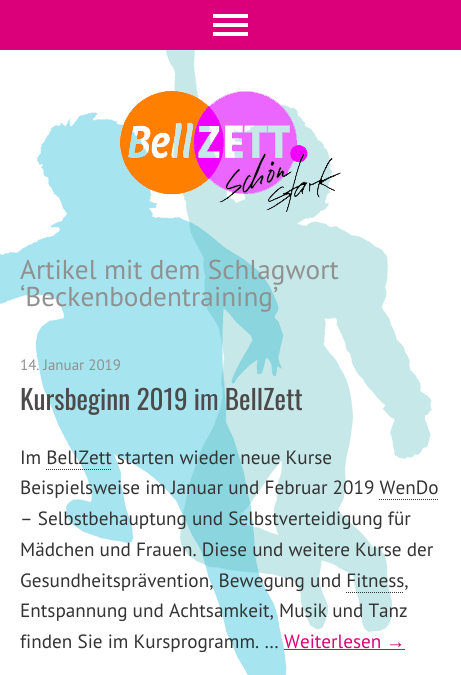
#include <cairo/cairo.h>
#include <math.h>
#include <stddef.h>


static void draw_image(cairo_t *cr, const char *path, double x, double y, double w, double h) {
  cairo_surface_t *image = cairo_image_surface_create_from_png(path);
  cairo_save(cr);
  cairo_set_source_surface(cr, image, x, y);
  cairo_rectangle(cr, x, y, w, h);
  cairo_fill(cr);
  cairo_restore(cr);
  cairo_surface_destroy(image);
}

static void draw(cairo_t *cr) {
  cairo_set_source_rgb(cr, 1, 1, 1);
  cairo_paint(cr);
  draw_image(cr, "images/1.png", 0, 50, 432, 625);
  cairo_set_source_rgb(cr, 219 / 255.0, 0, 122 / 255.0);
  cairo_rectangle(cr, 0, 0, 461, 50);
  cairo_fill(cr);
  draw_image(cr, "images/2.png", 213, 14, 35, 22);
  draw_image(cr, "images/3.png", 120, 91, 221, 121);
  cairo_new_path(cr);
  cairo_move_to(cr, 46, 469.5);
  cairo_line_to(cr, 112, 469.5);
  cairo_set_source_rgb(cr, 51 / 255.0, 51 / 255.0, 51 / 255.0);
  cairo_set_line_width(cr, 1);
  cairo_set_dash(cr, (double[]){1, 1}, 2, 0);
  cairo_stroke(cr);
  cairo_new_path(cr);
  cairo_move_to(cr, 379, 499.5);
  cairo_line_to(cr, 438, 499.5);
  cairo_stroke(cr);
  cairo_new_path(cr);
  cairo_move_to(cr, 346, 592.5);
  cairo_line_to(cr, 404, 592.5);
  cairo_stroke(cr);
  cairo_set_source_rgb(cr, 219 / 255.0, 0, 122 / 255.0);
  cairo_rectangle(cr, 284, 649, 121, 1);
  cairo_fill(cr);
  cairo_select_font_face(cr, "PT Sans", CAIRO_FONT_SLANT_NORMAL, CAIRO_FONT_WEIGHT_NORMAL);
  cairo_set_font_size(cr, 27.25);
  cairo_set_source_rgb(cr, 144 / 255.0, 144 / 255.0, 144 / 255.0);
  cairo_move_to(cr, 20, 279);
  cairo_show_text(cr, "Artikel mit dem Schlagwort");
  cairo_move_to(cr, 20, 306);
  cairo_show_text(cr, "‘Beckenbodentraining’");
  cairo_set_font_size(cr, 15);
  cairo_move_to(cr, 20, 370);
  cairo_show_text(cr, "14. Januar 2019");
  cairo_select_font_face(cr, "Oswald", CAIRO_FONT_SLANT_NORMAL, CAIRO_FONT_WEIGHT_NORMAL);
  cairo_set_font_size(cr, 27.25);
  cairo_set_source_rgb(cr, 76 / 255.0, 74 / 255.0, 74 / 255.0);
  cairo_move_to(cr, 20, 410);
  cairo_show_text(cr, "Kursbeginn 2019 im BellZett");
  cairo_select_font_face(cr, "PT Sans", CAIRO_FONT_SLANT_NORMAL, CAIRO_FONT_WEIGHT_NORMAL);
  cairo_set_font_size(cr, 19.2);
  cairo_set_source_rgb(cr, 51 / 255.0, 51 / 255.0, 51 / 255.0);
  cairo_move_to(cr, 20, 464);
  cairo_show_text(cr, "Im BellZett starten wieder neue Kurse");
  cairo_move_to(cr, 20, 494);
  cairo_show_text(cr, "Beispielsweise im Januar und Februar 2019 WenDo");
  cairo_move_to(cr, 20, 525);
  cairo_show_text(cr, "– Selbstbehauptung und Selbstverteidigung für");
  cairo_move_to(cr, 20, 556);
  cairo_show_text(cr, "Mädchen und Frauen. Diese und weitere Kurse der");
  cairo_move_to(cr, 20, 587);
  cairo_show_text(cr, "Gesundheitsprävention, Bewegung und Fitness,");
  cairo_move_to(cr, 20, 617);
  cairo_show_text(cr, "Entspannung und Achtsamkeit, Musik und Tanz");
  cairo_move_to(cr, 20, 648);
  cairo_show_text(cr, "finden Sie im Kursprogramm. …");
  cairo_set_source_rgb(cr, 219 / 255.0, 0, 122 / 255.0);
  cairo_move_to(cr, 284, 648);
  cairo_show_text(cr, "Weiterlesen");
  cairo_select_font_face(cr, "Liberation Sans", CAIRO_FONT_SLANT_NORMAL, CAIRO_FONT_WEIGHT_NORMAL);
  cairo_move_to(cr, 386, 648);
  cairo_show_text(cr, "→");
}

int main(void) {
  cairo_surface_t *surface = cairo_image_surface_create(CAIRO_FORMAT_RGB24, 461, 675);
  cairo_t *cr = cairo_create(surface);
  cairo_font_options_t *options = cairo_font_options_create();
  cairo_font_options_set_hint_metrics(options, CAIRO_HINT_METRICS_OFF);
  cairo_font_options_set_hint_style(options, CAIRO_HINT_STYLE_NONE);
  cairo_set_font_options(cr, options);
  cairo_set_miter_limit(cr, 4);
  draw(cr);
  cairo_surface_write_to_png(surface, "out.png");
  cairo_font_options_destroy(options);
  cairo_destroy(cr);
  cairo_surface_destroy(surface);
  return 0;
}
